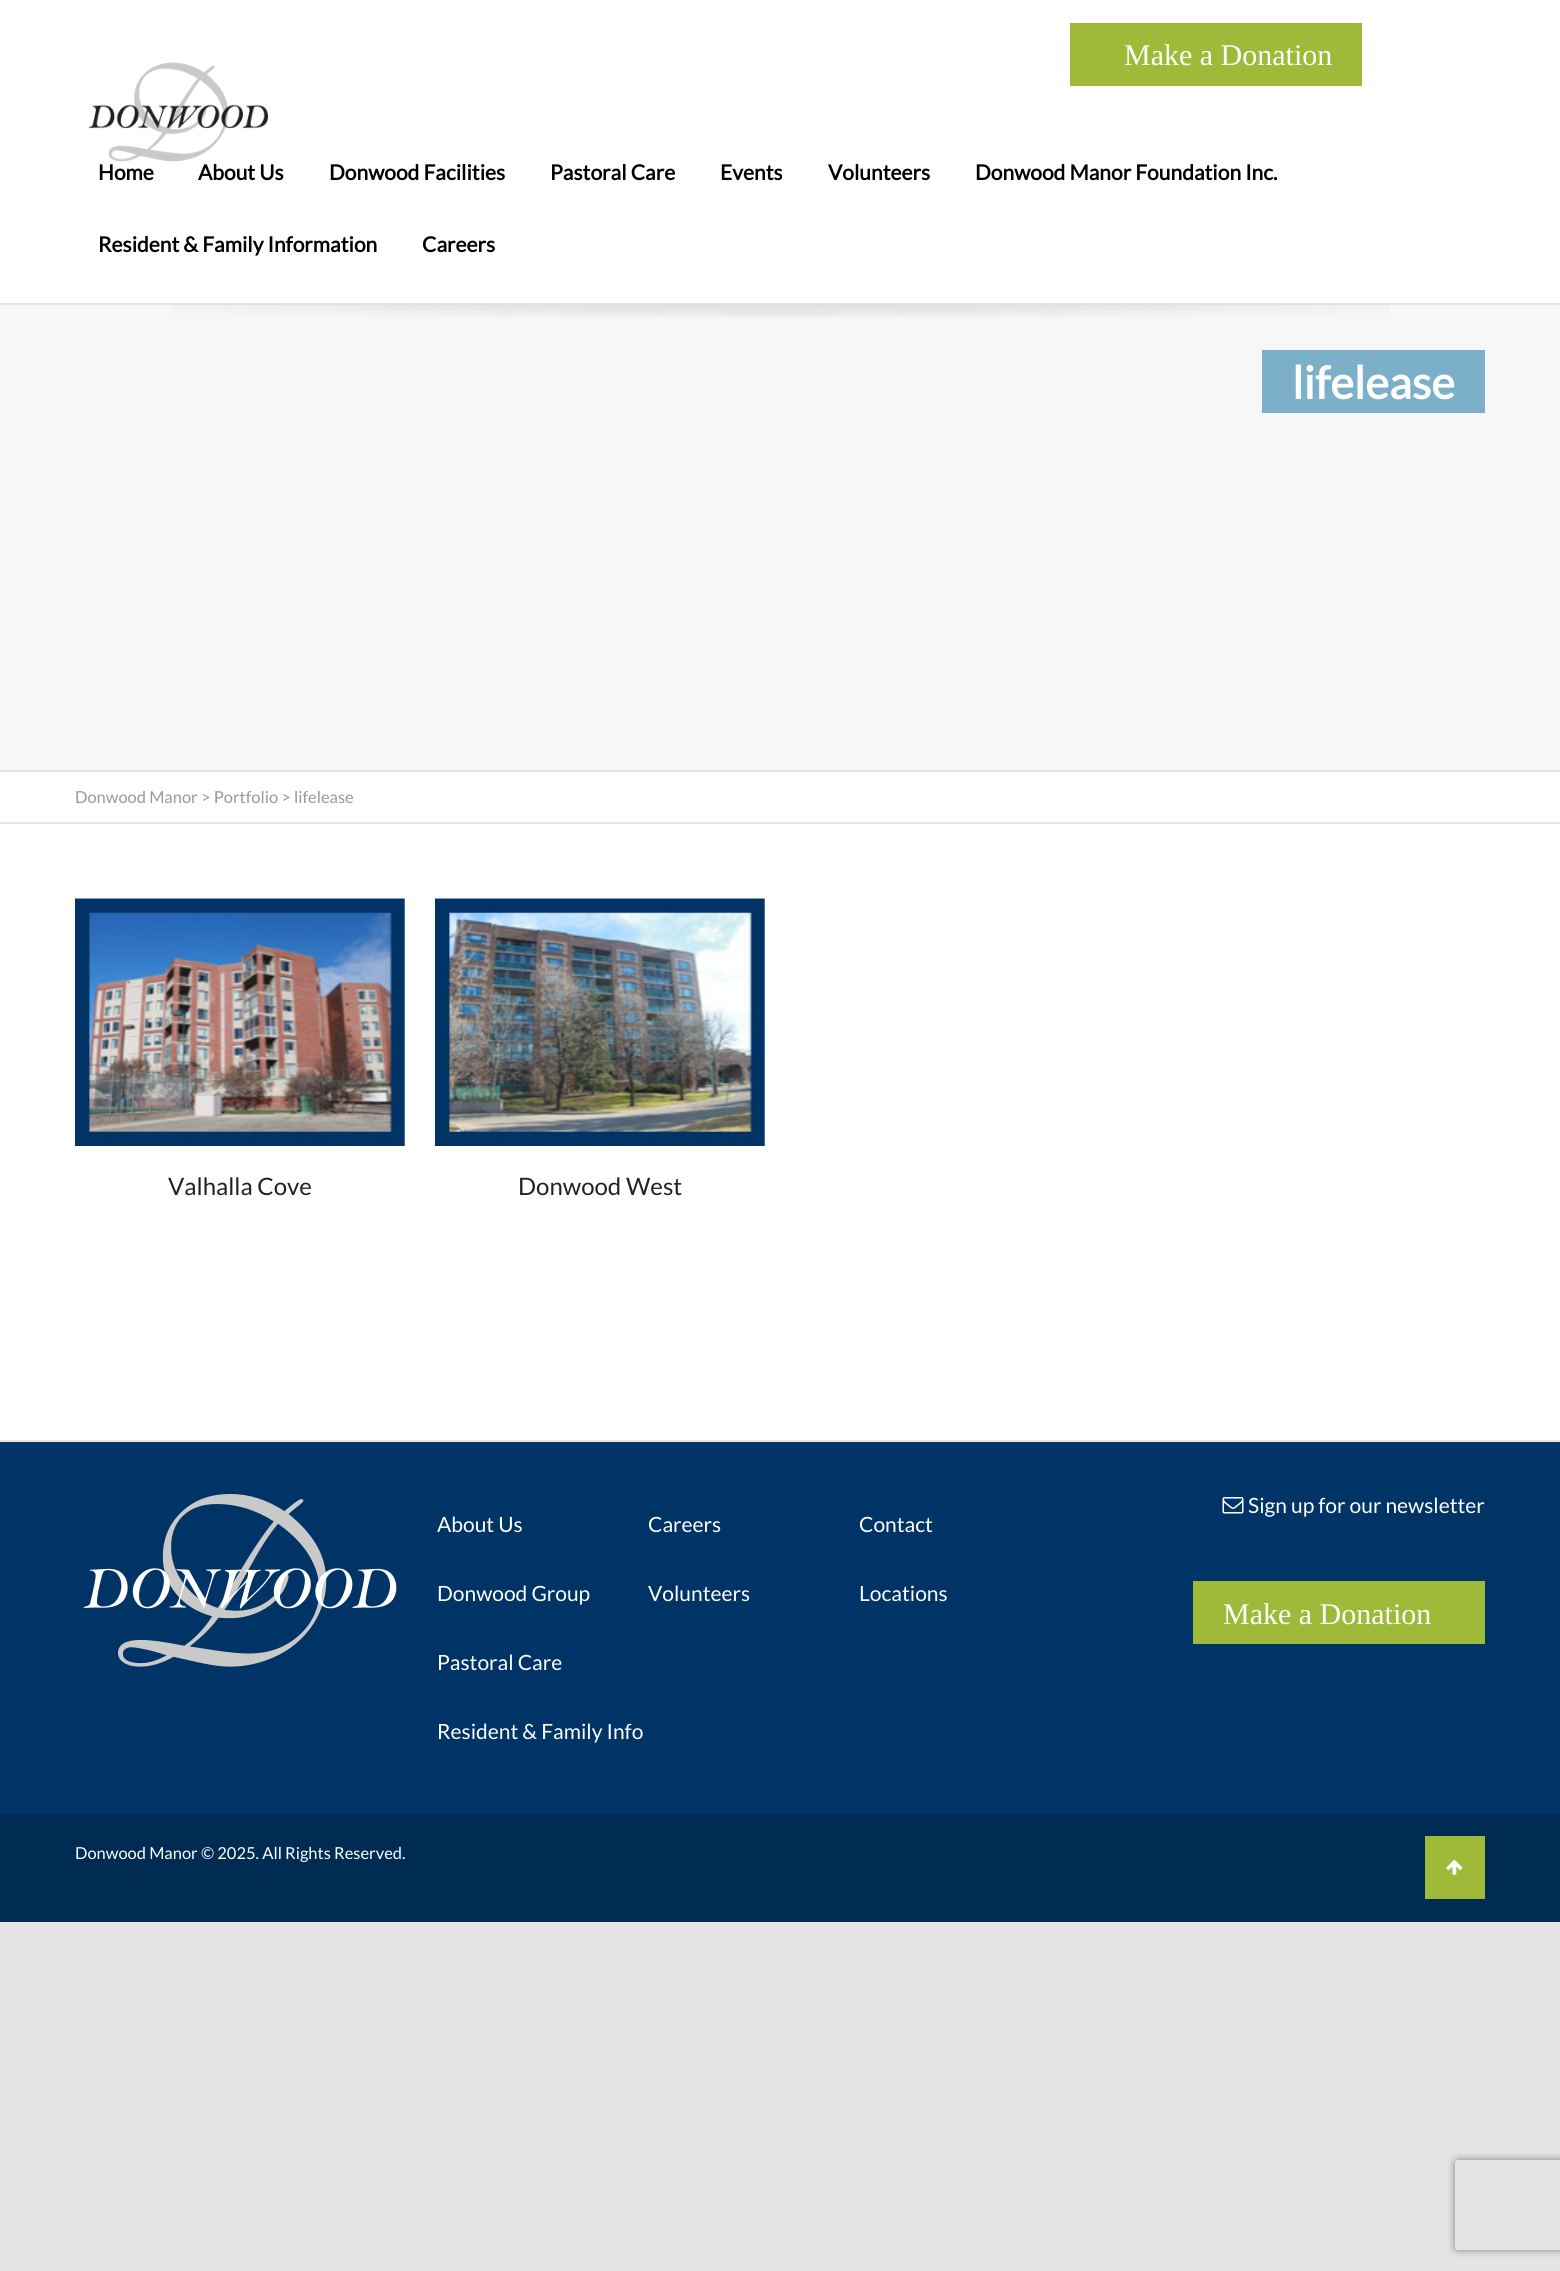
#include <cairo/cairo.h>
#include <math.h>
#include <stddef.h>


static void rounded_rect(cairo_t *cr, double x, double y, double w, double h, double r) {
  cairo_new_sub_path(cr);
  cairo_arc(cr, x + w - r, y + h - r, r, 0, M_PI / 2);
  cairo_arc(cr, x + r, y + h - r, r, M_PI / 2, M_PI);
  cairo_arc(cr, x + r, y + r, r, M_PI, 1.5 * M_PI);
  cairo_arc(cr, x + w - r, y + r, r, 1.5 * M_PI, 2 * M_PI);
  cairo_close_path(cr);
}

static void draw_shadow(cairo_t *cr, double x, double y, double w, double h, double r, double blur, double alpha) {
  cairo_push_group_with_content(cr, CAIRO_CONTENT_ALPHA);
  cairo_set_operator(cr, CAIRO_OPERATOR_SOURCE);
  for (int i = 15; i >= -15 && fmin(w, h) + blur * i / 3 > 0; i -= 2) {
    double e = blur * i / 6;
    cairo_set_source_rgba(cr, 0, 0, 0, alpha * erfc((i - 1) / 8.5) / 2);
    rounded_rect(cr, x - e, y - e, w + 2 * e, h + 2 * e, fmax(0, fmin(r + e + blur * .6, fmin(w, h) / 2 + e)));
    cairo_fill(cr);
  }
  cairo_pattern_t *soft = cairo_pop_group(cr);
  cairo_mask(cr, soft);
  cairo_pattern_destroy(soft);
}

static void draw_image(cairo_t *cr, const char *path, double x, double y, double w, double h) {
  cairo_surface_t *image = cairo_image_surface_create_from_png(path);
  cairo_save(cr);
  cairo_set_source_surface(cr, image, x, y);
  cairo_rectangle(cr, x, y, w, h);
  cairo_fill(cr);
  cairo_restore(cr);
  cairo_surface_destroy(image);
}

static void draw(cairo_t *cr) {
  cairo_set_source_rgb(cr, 228 / 255.0, 228 / 255.0, 228 / 255.0);
  cairo_paint(cr);
  cairo_set_source_rgb(cr, 1, 1, 1);
  cairo_rectangle(cr, 0, 0, 1560, 303);
  cairo_fill(cr);
  cairo_set_source_rgb(cr, 159 / 255.0, 186 / 255.0, 57 / 255.0);
  cairo_rectangle(cr, 1070, 23, 292, 63);
  cairo_fill(cr);
  draw_image(cr, "images/1.png", 89, 62, 180, 100);
  cairo_set_source_rgb(cr, 1, 1, 1);
  cairo_rectangle(cr, 0, 772, 1560, 668);
  cairo_fill(cr);
  cairo_set_source_rgb(cr, 247 / 255.0, 247 / 255.0, 247 / 255.0);
  cairo_rectangle(cr, 0, 305, 1560, 465);
  cairo_fill(cr);
  draw_image(cr, "images/2.png", 171, 304, 1219, 14);
  cairo_set_source_rgb(cr, 124 / 255.0, 175 / 255.0, 200 / 255.0);
  cairo_rectangle(cr, 1262, 350, 223, 63);
  cairo_fill(cr);
  cairo_set_source_rgb(cr, 228 / 255.0, 228 / 255.0, 228 / 255.0);
  cairo_rectangle(cr, 0, 822, 1560, 2);
  cairo_fill(cr);
  draw_image(cr, "images/3.png", 75, 898, 330, 248);
  draw_image(cr, "images/4.png", 435, 898, 330, 248);
  cairo_set_source_rgb(cr, 0, 51 / 255.0, 102 / 255.0);
  cairo_rectangle(cr, 0, 1442, 1560, 372);
  cairo_fill(cr);
  draw_image(cr, "images/5.png", 83, 1494, 314, 173);
  draw_image(cr, "images/6.png", 1222, 1497, 22, 17);
  cairo_set_source_rgb(cr, 159 / 255.0, 186 / 255.0, 57 / 255.0);
  cairo_rectangle(cr, 1193, 1581, 292, 63);
  cairo_fill(cr);
  cairo_set_source_rgb(cr, 0, 44 / 255.0, 84 / 255.0);
  cairo_rectangle(cr, 0, 1814, 1560, 108);
  cairo_fill(cr);
  cairo_set_source_rgb(cr, 159 / 255.0, 186 / 255.0, 57 / 255.0);
  cairo_rectangle(cr, 1425, 1836, 60, 63);
  cairo_fill(cr);
  draw_image(cr, "images/7.png", 1446, 1860, 17, 15);
  cairo_save(cr);
  cairo_set_fill_rule(cr, CAIRO_FILL_RULE_EVEN_ODD);
  cairo_new_path(cr);
  cairo_move_to(cr, 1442, 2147);
  cairo_line_to(cr, 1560, 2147);
  cairo_line_to(cr, 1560, 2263);
  cairo_line_to(cr, 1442, 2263);
  cairo_close_path(cr);
  cairo_move_to(cr, 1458, 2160);
  cairo_line_to(cr, 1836, 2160);
  cairo_curve_to(cr, 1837.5, 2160, 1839, 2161.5, 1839, 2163);
  cairo_line_to(cr, 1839, 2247);
  cairo_curve_to(cr, 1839, 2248.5, 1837.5, 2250, 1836, 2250);
  cairo_line_to(cr, 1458, 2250);
  cairo_curve_to(cr, 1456.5, 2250, 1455, 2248.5, 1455, 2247);
  cairo_line_to(cr, 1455, 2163);
  cairo_curve_to(cr, 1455, 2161.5, 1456.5, 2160, 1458, 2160);
  cairo_close_path(cr);
  cairo_clip(cr);
  cairo_set_source_rgb(cr, 128 / 255.0, 128 / 255.0, 128 / 255.0);
  draw_shadow(cr, 1455, 2160, 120, 90, 3, 4, 1);
  cairo_restore(cr);
  cairo_select_font_face(cr, "Liberation Serif", CAIRO_FONT_SLANT_NORMAL, CAIRO_FONT_WEIGHT_NORMAL);
  cairo_set_font_size(cr, 30);
  cairo_set_source_rgb(cr, 1, 1, 1);
  cairo_move_to(cr, 1124, 65);
  cairo_show_text(cr, "Make a Donation");
  cairo_select_font_face(cr, "Lato", CAIRO_FONT_SLANT_NORMAL, CAIRO_FONT_WEIGHT_BOLD);
  cairo_set_font_size(cr, 21);
  cairo_set_source_rgb(cr, 0, 0, 0);
  cairo_move_to(cr, 98, 180);
  cairo_show_text(cr, "Home");
  cairo_move_to(cr, 198, 180);
  cairo_show_text(cr, "About Us");
  cairo_move_to(cr, 329, 180);
  cairo_show_text(cr, "Donwood Facilities");
  cairo_move_to(cr, 550, 180);
  cairo_show_text(cr, "Pastoral Care");
  cairo_move_to(cr, 720, 180);
  cairo_show_text(cr, "Events");
  cairo_move_to(cr, 828, 180);
  cairo_show_text(cr, "Volunteers");
  cairo_move_to(cr, 975, 180);
  cairo_show_text(cr, "Donwood Manor Foundation Inc.");
  cairo_move_to(cr, 98, 252);
  cairo_show_text(cr, "Resident & Family Information");
  cairo_move_to(cr, 422, 252);
  cairo_show_text(cr, "Careers");
  cairo_set_font_size(cr, 45);
  cairo_set_source_rgb(cr, 1, 1, 1);
  cairo_move_to(cr, 1292, 399);
  cairo_show_text(cr, "lifelease");
  cairo_select_font_face(cr, "Lato", CAIRO_FONT_SLANT_NORMAL, CAIRO_FONT_WEIGHT_NORMAL);
  cairo_set_font_size(cr, 16.5);
  cairo_set_source_rgb(cr, 153 / 255.0, 153 / 255.0, 153 / 255.0);
  cairo_move_to(cr, 75, 803);
  cairo_show_text(cr, "Donwood Manor > Portfolio > lifelease");
  cairo_set_font_size(cr, 24);
  cairo_set_source_rgb(cr, 34 / 255.0, 34 / 255.0, 34 / 255.0);
  cairo_move_to(cr, 168, 1195);
  cairo_show_text(cr, "Valhalla Cove");
  cairo_move_to(cr, 518, 1195);
  cairo_show_text(cr, "Donwood West");
  cairo_set_font_size(cr, 21);
  cairo_set_source_rgb(cr, 1, 1, 1);
  cairo_move_to(cr, 437, 1532);
  cairo_show_text(cr, "About Us");
  cairo_move_to(cr, 437, 1601);
  cairo_show_text(cr, "Donwood Group");
  cairo_move_to(cr, 437, 1670);
  cairo_show_text(cr, "Pastoral Care");
  cairo_move_to(cr, 437, 1739);
  cairo_show_text(cr, "Resident & Family Info");
  cairo_move_to(cr, 648, 1532);
  cairo_show_text(cr, "Careers");
  cairo_move_to(cr, 648, 1601);
  cairo_show_text(cr, "Volunteers");
  cairo_move_to(cr, 859, 1532);
  cairo_show_text(cr, "Contact");
  cairo_move_to(cr, 859, 1601);
  cairo_show_text(cr, "Locations");
  cairo_move_to(cr, 1248, 1513);
  cairo_show_text(cr, "Sign up for our newsletter");
  cairo_select_font_face(cr, "Liberation Serif", CAIRO_FONT_SLANT_NORMAL, CAIRO_FONT_WEIGHT_NORMAL);
  cairo_set_font_size(cr, 30);
  cairo_move_to(cr, 1223, 1624);
  cairo_show_text(cr, "Make a Donation");
  cairo_select_font_face(cr, "Lato", CAIRO_FONT_SLANT_NORMAL, CAIRO_FONT_WEIGHT_NORMAL);
  cairo_set_font_size(cr, 16.5);
  cairo_move_to(cr, 75, 1859);
  cairo_show_text(cr, "Donwood Manor © 2025. All Rights Reserved.");
}

int main(void) {
  cairo_surface_t *surface = cairo_image_surface_create(CAIRO_FORMAT_RGB24, 1560, 2271);
  cairo_t *cr = cairo_create(surface);
  cairo_font_options_t *options = cairo_font_options_create();
  cairo_font_options_set_hint_metrics(options, CAIRO_HINT_METRICS_OFF);
  cairo_font_options_set_hint_style(options, CAIRO_HINT_STYLE_NONE);
  cairo_set_font_options(cr, options);
  cairo_set_miter_limit(cr, 4);
  draw(cr);
  cairo_surface_write_to_png(surface, "out.png");
  cairo_font_options_destroy(options);
  cairo_destroy(cr);
  cairo_surface_destroy(surface);
  return 0;
}
